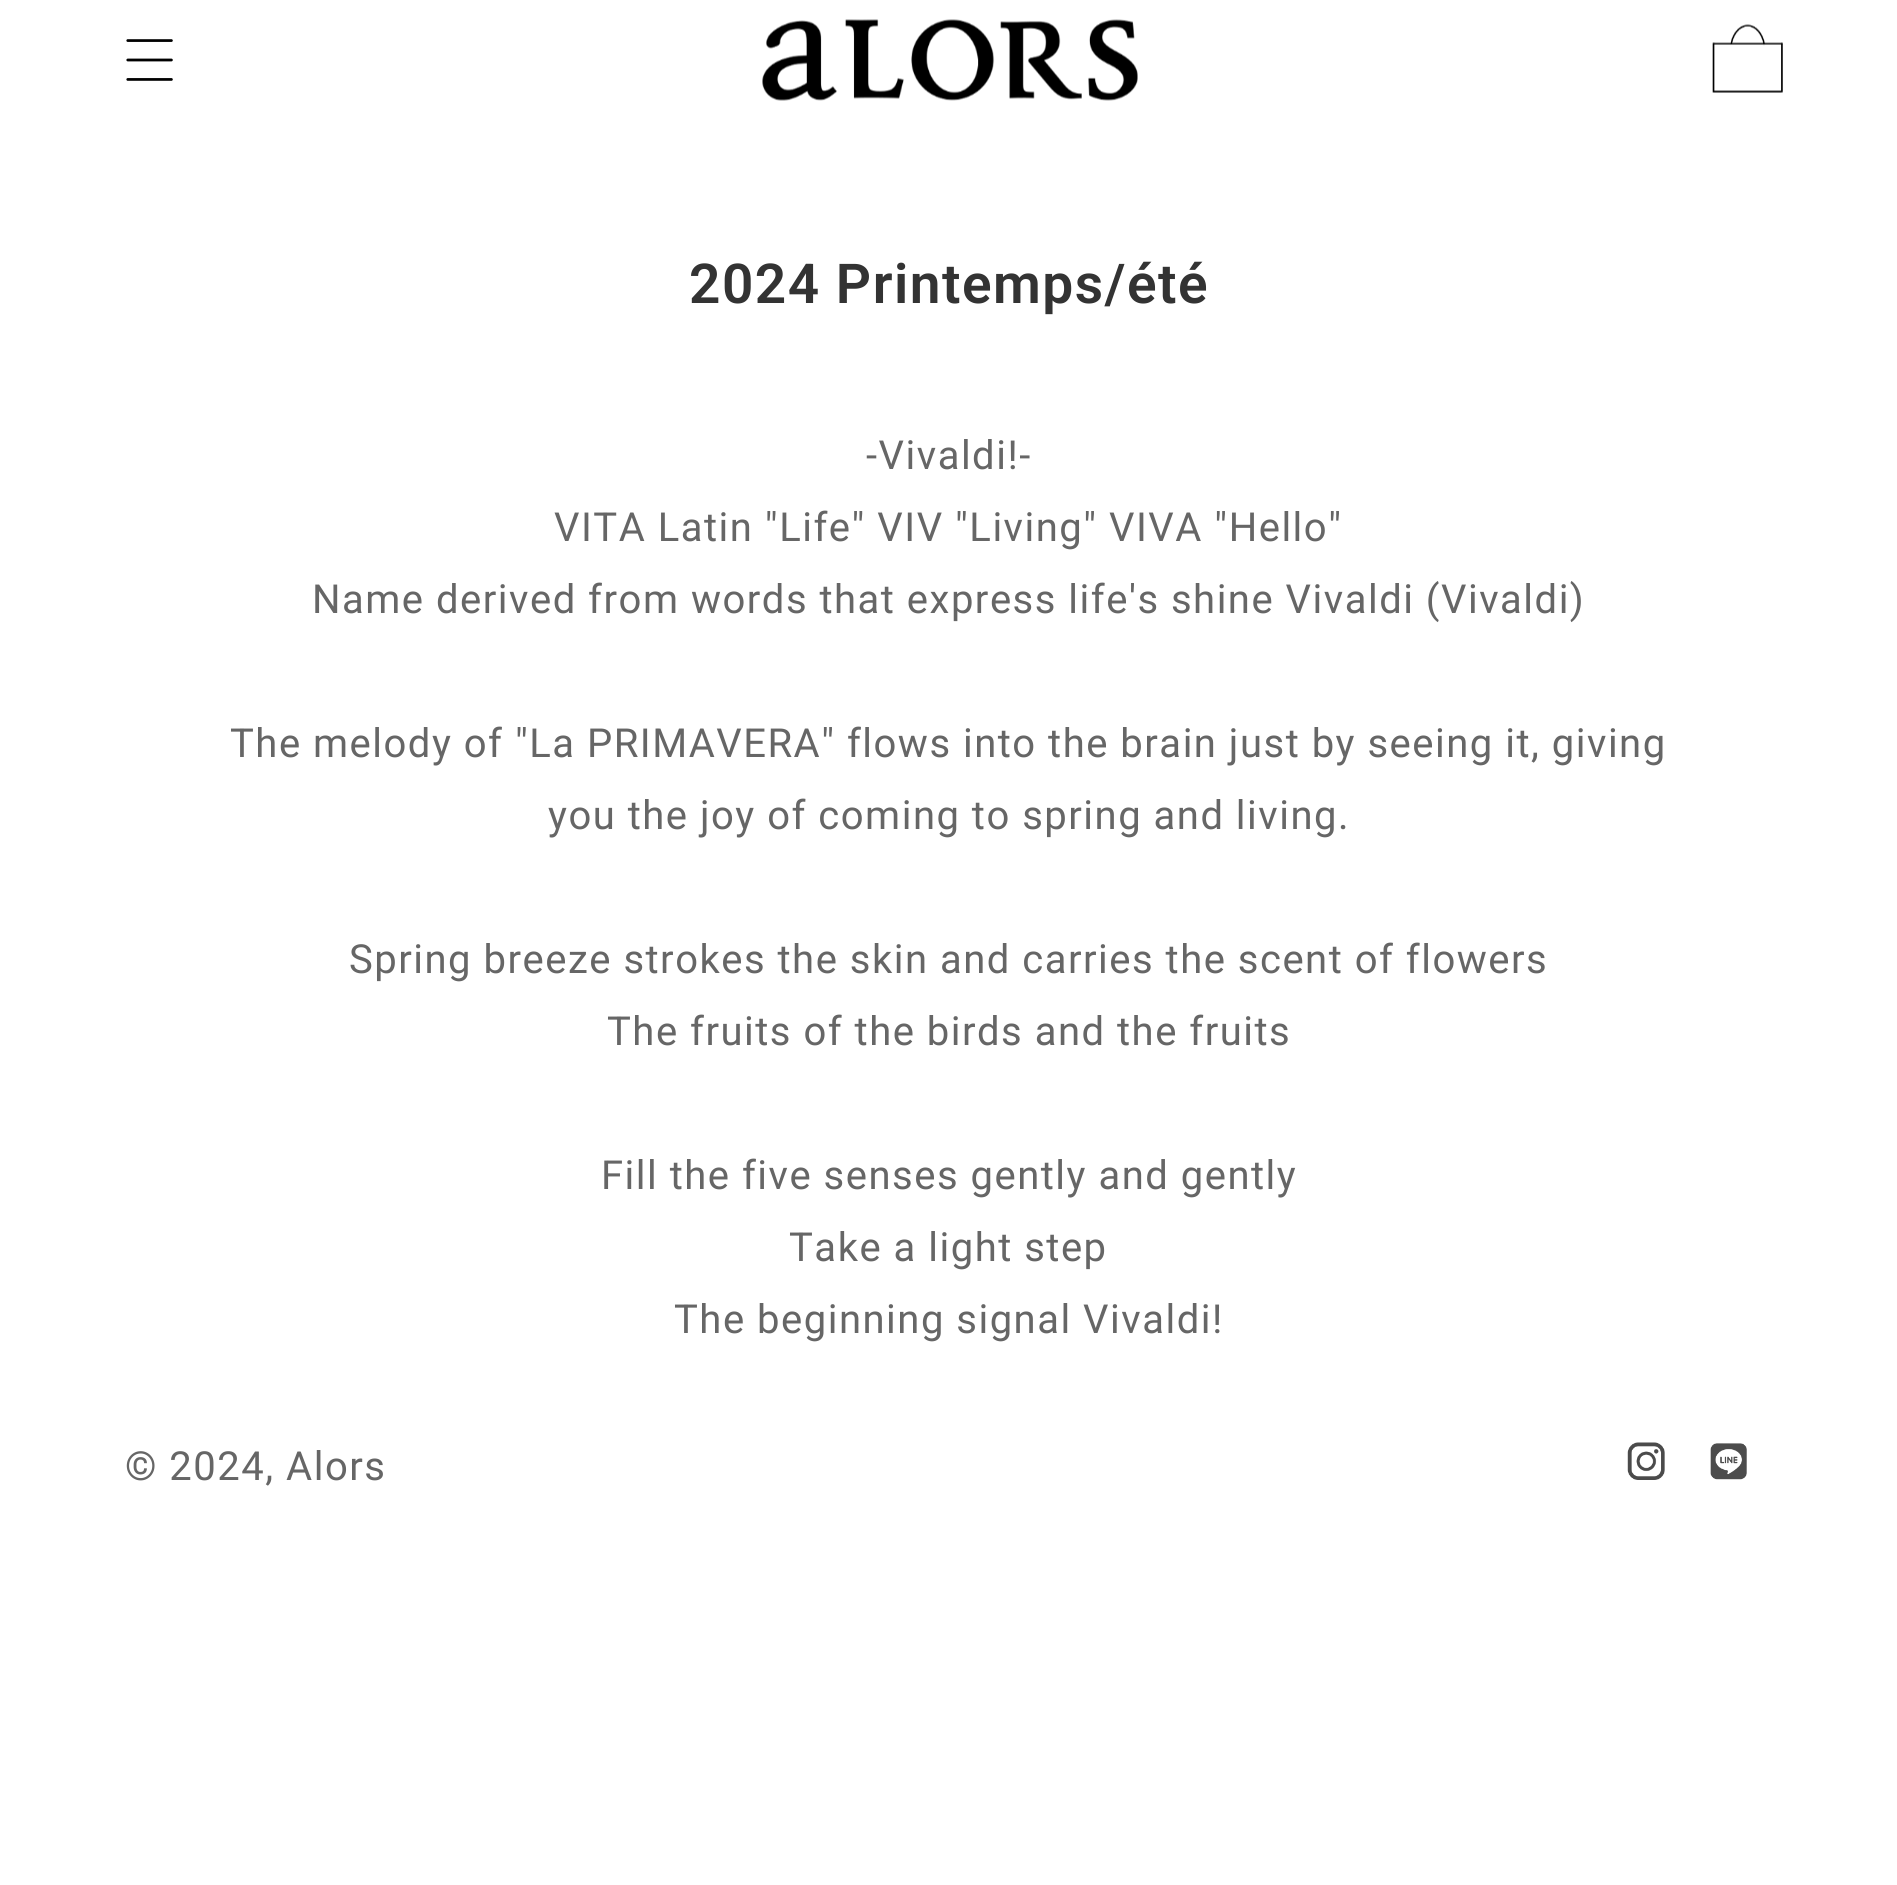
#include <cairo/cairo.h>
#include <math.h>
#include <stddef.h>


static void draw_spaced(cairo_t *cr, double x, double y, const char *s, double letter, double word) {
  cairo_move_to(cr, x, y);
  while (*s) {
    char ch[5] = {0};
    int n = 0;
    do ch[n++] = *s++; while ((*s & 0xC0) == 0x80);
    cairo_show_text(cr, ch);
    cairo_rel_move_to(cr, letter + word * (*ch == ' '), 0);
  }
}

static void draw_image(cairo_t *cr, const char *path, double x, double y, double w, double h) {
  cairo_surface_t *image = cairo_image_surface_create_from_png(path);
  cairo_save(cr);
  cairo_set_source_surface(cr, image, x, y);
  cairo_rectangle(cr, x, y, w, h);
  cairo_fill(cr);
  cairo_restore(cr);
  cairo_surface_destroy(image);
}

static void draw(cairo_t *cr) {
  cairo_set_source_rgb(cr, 1, 1, 1);
  cairo_paint(cr);
  draw_image(cr, "images/1.png", 126, 39, 47, 42);
  draw_image(cr, "images/2.png", 762, 19, 376, 82);
  draw_image(cr, "images/3.png", 1712, 24, 71, 69);
  draw_image(cr, "images/4.png", 1627, 1442, 38, 38);
  draw_image(cr, "images/5.png", 1710, 1443, 37, 37);
  cairo_select_font_face(cr, "Roboto SemiBold", CAIRO_FONT_SLANT_NORMAL, CAIRO_FONT_WEIGHT_NORMAL);
  cairo_set_font_size(cr, 55);
  cairo_set_source_rgb(cr, 51 / 255.0, 51 / 255.0, 51 / 255.0);
  draw_spaced(cr, 689, 303, "2024 Printemps/été", 1.5, 0);
  cairo_select_font_face(cr, "Roboto", CAIRO_FONT_SLANT_NORMAL, CAIRO_FONT_WEIGHT_NORMAL);
  cairo_set_font_size(cr, 40);
  cairo_set_source_rgb(cr, 102 / 255.0, 102 / 255.0, 102 / 255.0);
  draw_spaced(cr, 866, 469, "-Vivaldi!-", 1.5, 0);
  draw_spaced(cr, 554, 541, "VITA Latin \"Life\" VIV \"Living\" VIVA \"Hello\"", 1.5, 0);
  draw_spaced(cr, 312, 613, "Name derived from words that express life's shine Vivaldi (Vivaldi)", 1.5, 0);
  draw_spaced(cr, 230, 757, "The melody of \"La PRIMAVERA\" flows into the brain just by seeing it, giving", 1.5, 0);
  draw_spaced(cr, 548, 829, "you the joy of coming to spring and living.", 1.5, 0);
  draw_spaced(cr, 349, 973, "Spring breeze strokes the skin and carries the scent of flowers", 1.5, 0);
  draw_spaced(cr, 607, 1045, "The fruits of the birds and the fruits", 1.5, 0);
  draw_spaced(cr, 601, 1189, "Fill the five senses gently and gently", 1.5, 0);
  draw_spaced(cr, 789, 1261, "Take a light step", 1.5, 0);
  draw_spaced(cr, 674, 1333, "The beginning signal Vivaldi!", 1.5, 0);
  draw_spaced(cr, 125, 1480, "© 2024, Alors", 1.5, 0);
}

int main(void) {
  cairo_surface_t *surface = cairo_image_surface_create(CAIRO_FORMAT_RGB24, 1897, 1885);
  cairo_t *cr = cairo_create(surface);
  cairo_font_options_t *options = cairo_font_options_create();
  cairo_font_options_set_hint_metrics(options, CAIRO_HINT_METRICS_OFF);
  cairo_font_options_set_hint_style(options, CAIRO_HINT_STYLE_NONE);
  cairo_set_font_options(cr, options);
  cairo_set_miter_limit(cr, 4);
  draw(cr);
  cairo_surface_write_to_png(surface, "out.png");
  cairo_font_options_destroy(options);
  cairo_destroy(cr);
  cairo_surface_destroy(surface);
  return 0;
}
